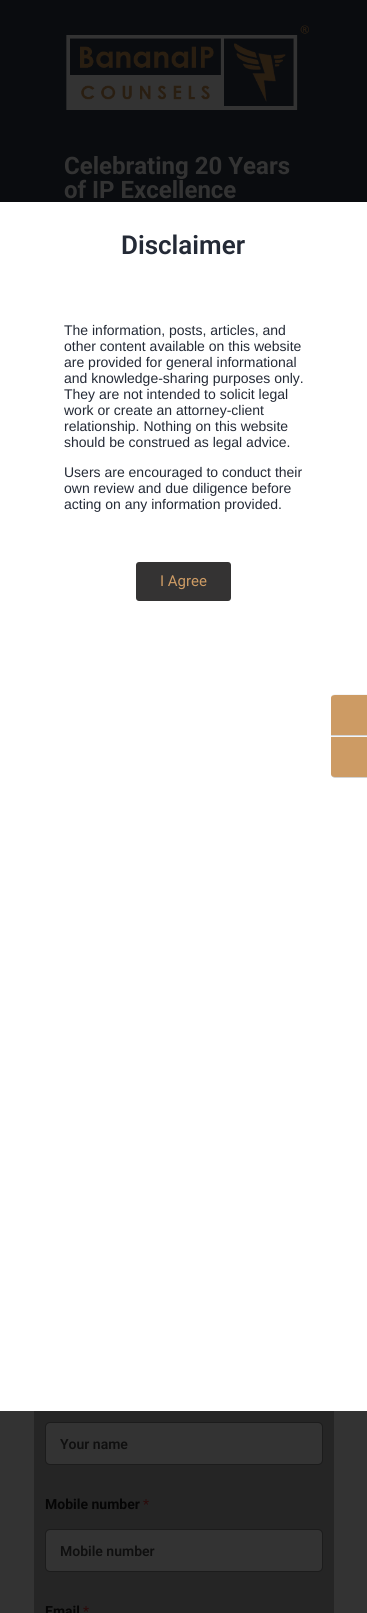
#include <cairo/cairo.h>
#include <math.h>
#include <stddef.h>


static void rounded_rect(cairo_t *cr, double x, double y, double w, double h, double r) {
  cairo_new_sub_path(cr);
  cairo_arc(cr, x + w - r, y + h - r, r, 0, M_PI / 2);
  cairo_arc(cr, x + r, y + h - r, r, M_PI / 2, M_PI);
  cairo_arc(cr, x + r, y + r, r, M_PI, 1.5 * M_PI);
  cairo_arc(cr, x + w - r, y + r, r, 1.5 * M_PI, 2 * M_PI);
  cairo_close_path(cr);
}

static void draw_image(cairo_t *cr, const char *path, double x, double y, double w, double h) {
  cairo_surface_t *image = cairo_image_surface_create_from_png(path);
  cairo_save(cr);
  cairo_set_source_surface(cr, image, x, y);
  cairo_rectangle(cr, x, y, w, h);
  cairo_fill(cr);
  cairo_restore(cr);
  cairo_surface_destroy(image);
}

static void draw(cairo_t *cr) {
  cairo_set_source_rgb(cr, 51 / 255.0, 51 / 255.0, 51 / 255.0);
  cairo_paint(cr);
  cairo_set_source_rgb(cr, 10 / 255.0, 12 / 255.0, 15 / 255.0);
  cairo_rectangle(cr, 0, 0, 367, 202);
  cairo_fill(cr);
  draw_image(cr, "images/1.png", 66, 25, 243, 85);
  cairo_set_source_rgb(cr, 37 / 255.0, 37 / 255.0, 37 / 255.0);
  cairo_rectangle(cr, 34, 1411, 300, 202);
  cairo_fill(cr);
  cairo_set_source_rgb(cr, 51 / 255.0, 51 / 255.0, 51 / 255.0);
  rounded_rect(cr, 46, 1423, 276, 41, 4);
  cairo_fill(cr);
  rounded_rect(cr, 45.5, 1422.5, 277, 42, 4.5);
  cairo_set_source_rgba(cr, 0, 0, 0, 0.25);
  cairo_set_line_width(cr, 1);
  cairo_stroke(cr);
  cairo_set_source_rgb(cr, 51 / 255.0, 51 / 255.0, 51 / 255.0);
  rounded_rect(cr, 46, 1530, 276, 41, 4);
  cairo_fill(cr);
  rounded_rect(cr, 45.5, 1529.5, 277, 42, 4.5);
  cairo_set_source_rgba(cr, 0, 0, 0, 0.25);
  cairo_stroke(cr);
  cairo_set_source_rgb(cr, 1, 1, 1);
  cairo_rectangle(cr, 0, 202, 367, 1209);
  cairo_fill(cr);
  cairo_set_source_rgb(cr, 52 / 255.0, 51 / 255.0, 51 / 255.0);
  rounded_rect(cr, 136, 562, 95, 39, 3);
  cairo_fill(cr);
  cairo_save(cr);
  cairo_new_path(cr);
  cairo_move_to(cr, 335, 694);
  cairo_line_to(cr, 367, 694);
  cairo_line_to(cr, 367, 736);
  cairo_line_to(cr, 331, 736);
  cairo_line_to(cr, 331, 698);
  cairo_curve_to(cr, 331, 696, 333, 694, 335, 694);
  cairo_close_path(cr);
  cairo_clip(cr);
  cairo_set_source_rgb(cr, 205 / 255.0, 155 / 255.0, 100 / 255.0);
  cairo_rectangle(cr, 331, 695, 36, 40);
  cairo_fill(cr);
  cairo_restore(cr);
  cairo_set_source_rgb(cr, 245 / 255.0, 245 / 255.0, 245 / 255.0);
  cairo_new_path(cr);
  cairo_move_to(cr, 335, 695);
  cairo_line_to(cr, 367, 695);
  cairo_line_to(cr, 367, 694);
  cairo_line_to(cr, 335, 694);
  cairo_curve_to(cr, 333, 694, 331, 696, 331, 698);
  cairo_curve_to(cr, 331, 696, 333, 695, 335, 695);
  cairo_close_path(cr);
  cairo_fill(cr);
  cairo_set_source_rgb(cr, 210 / 255.0, 210 / 255.0, 210 / 255.0);
  cairo_rectangle(cr, 331, 735, 36, 1);
  cairo_fill(cr);
  cairo_save(cr);
  cairo_new_path(cr);
  cairo_move_to(cr, 331, 736);
  cairo_line_to(cr, 367, 736);
  cairo_line_to(cr, 367, 778);
  cairo_line_to(cr, 335, 778);
  cairo_curve_to(cr, 333, 778, 331, 776, 331, 774);
  cairo_close_path(cr);
  cairo_clip(cr);
  cairo_set_source_rgb(cr, 205 / 255.0, 155 / 255.0, 100 / 255.0);
  cairo_rectangle(cr, 331, 737, 36, 40);
  cairo_fill(cr);
  cairo_restore(cr);
  cairo_set_source_rgb(cr, 245 / 255.0, 245 / 255.0, 245 / 255.0);
  cairo_rectangle(cr, 331, 736, 36, 1);
  cairo_fill(cr);
  cairo_set_source_rgb(cr, 210 / 255.0, 210 / 255.0, 210 / 255.0);
  cairo_new_path(cr);
  cairo_move_to(cr, 367, 778);
  cairo_line_to(cr, 367, 777);
  cairo_line_to(cr, 335, 777);
  cairo_curve_to(cr, 333, 777, 331, 776, 331, 774);
  cairo_curve_to(cr, 331, 776, 333, 778, 335, 778);
  cairo_close_path(cr);
  cairo_fill(cr);
  cairo_select_font_face(cr, "Roboto", CAIRO_FONT_SLANT_NORMAL, CAIRO_FONT_WEIGHT_BOLD);
  cairo_set_font_size(cr, 24);
  cairo_set_source_rgb(cr, 51 / 255.0, 51 / 255.0, 51 / 255.0);
  cairo_move_to(cr, 64, 174);
  cairo_show_text(cr, "Celebrating 20 Years");
  cairo_move_to(cr, 64, 198);
  cairo_show_text(cr, "of IP Excellence");
  cairo_select_font_face(cr, "Roboto SemiBold", CAIRO_FONT_SLANT_NORMAL, CAIRO_FONT_WEIGHT_NORMAL);
  cairo_set_font_size(cr, 14);
  cairo_set_source_rgb(cr, 15 / 255.0, 15 / 255.0, 15 / 255.0);
  cairo_move_to(cr, 60, 1449);
  cairo_show_text(cr, "Your name");
  cairo_select_font_face(cr, "Roboto", CAIRO_FONT_SLANT_NORMAL, CAIRO_FONT_WEIGHT_BOLD);
  cairo_set_source_rgb(cr, 5 / 255.0, 5 / 255.0, 5 / 255.0);
  cairo_move_to(cr, 45, 1509);
  cairo_show_text(cr, "Mobile number");
  cairo_select_font_face(cr, "Roboto", CAIRO_FONT_SLANT_NORMAL, CAIRO_FONT_WEIGHT_NORMAL);
  cairo_set_source_rgb(cr, 43 / 255.0, 11 / 255.0, 11 / 255.0);
  cairo_move_to(cr, 143, 1509);
  cairo_show_text(cr, "*");
  cairo_select_font_face(cr, "Roboto SemiBold", CAIRO_FONT_SLANT_NORMAL, CAIRO_FONT_WEIGHT_NORMAL);
  cairo_set_source_rgb(cr, 15 / 255.0, 15 / 255.0, 15 / 255.0);
  cairo_move_to(cr, 60, 1556);
  cairo_show_text(cr, "Mobile number");
  cairo_select_font_face(cr, "Roboto", CAIRO_FONT_SLANT_NORMAL, CAIRO_FONT_WEIGHT_BOLD);
  cairo_set_source_rgb(cr, 5 / 255.0, 5 / 255.0, 5 / 255.0);
  cairo_move_to(cr, 45, 1616);
  cairo_show_text(cr, "Email");
  cairo_select_font_face(cr, "Roboto", CAIRO_FONT_SLANT_NORMAL, CAIRO_FONT_WEIGHT_NORMAL);
  cairo_set_source_rgb(cr, 43 / 255.0, 11 / 255.0, 11 / 255.0);
  cairo_move_to(cr, 83, 1616);
  cairo_show_text(cr, "*");
  cairo_select_font_face(cr, "Roboto SemiBold", CAIRO_FONT_SLANT_NORMAL, CAIRO_FONT_WEIGHT_NORMAL);
  cairo_set_font_size(cr, 26);
  cairo_set_source_rgb(cr, 36 / 255.0, 42 / 255.0, 54 / 255.0);
  cairo_move_to(cr, 121, 254);
  cairo_show_text(cr, "Disclaimer");
  cairo_select_font_face(cr, "Liberation Sans", CAIRO_FONT_SLANT_NORMAL, CAIRO_FONT_WEIGHT_NORMAL);
  cairo_set_font_size(cr, 14);
  cairo_move_to(cr, 64, 335);
  cairo_show_text(cr, "The information, posts, articles, and");
  cairo_move_to(cr, 64, 351);
  cairo_show_text(cr, "other content available on this website");
  cairo_move_to(cr, 64, 367);
  cairo_show_text(cr, "are provided for general informational");
  cairo_move_to(cr, 64, 383);
  cairo_show_text(cr, "and knowledge-sharing purposes only.");
  cairo_move_to(cr, 64, 399);
  cairo_show_text(cr, "They are not intended to solicit legal");
  cairo_move_to(cr, 64, 415);
  cairo_show_text(cr, "work or create an attorney-client");
  cairo_move_to(cr, 64, 431);
  cairo_show_text(cr, "relationship. Nothing on this website");
  cairo_move_to(cr, 64, 447);
  cairo_show_text(cr, "should be construed as legal advice.");
  cairo_move_to(cr, 64, 477);
  cairo_show_text(cr, "Users are encouraged to conduct their");
  cairo_move_to(cr, 64, 493);
  cairo_show_text(cr, "own review and due diligence before");
  cairo_move_to(cr, 64, 509);
  cairo_show_text(cr, "acting on any information provided.");
  cairo_select_font_face(cr, "Roboto", CAIRO_FONT_SLANT_NORMAL, CAIRO_FONT_WEIGHT_NORMAL);
  cairo_set_font_size(cr, 15);
  cairo_set_source_rgb(cr, 205 / 255.0, 155 / 255.0, 100 / 255.0);
  cairo_move_to(cr, 160, 586);
  cairo_show_text(cr, "I Agree");
}

int main(void) {
  cairo_surface_t *surface = cairo_image_surface_create(CAIRO_FORMAT_RGB24, 367, 1613);
  cairo_t *cr = cairo_create(surface);
  cairo_font_options_t *options = cairo_font_options_create();
  cairo_font_options_set_hint_metrics(options, CAIRO_HINT_METRICS_OFF);
  cairo_font_options_set_hint_style(options, CAIRO_HINT_STYLE_NONE);
  cairo_set_font_options(cr, options);
  cairo_set_miter_limit(cr, 4);
  draw(cr);
  cairo_surface_write_to_png(surface, "out.png");
  cairo_font_options_destroy(options);
  cairo_destroy(cr);
  cairo_surface_destroy(surface);
  return 0;
}
